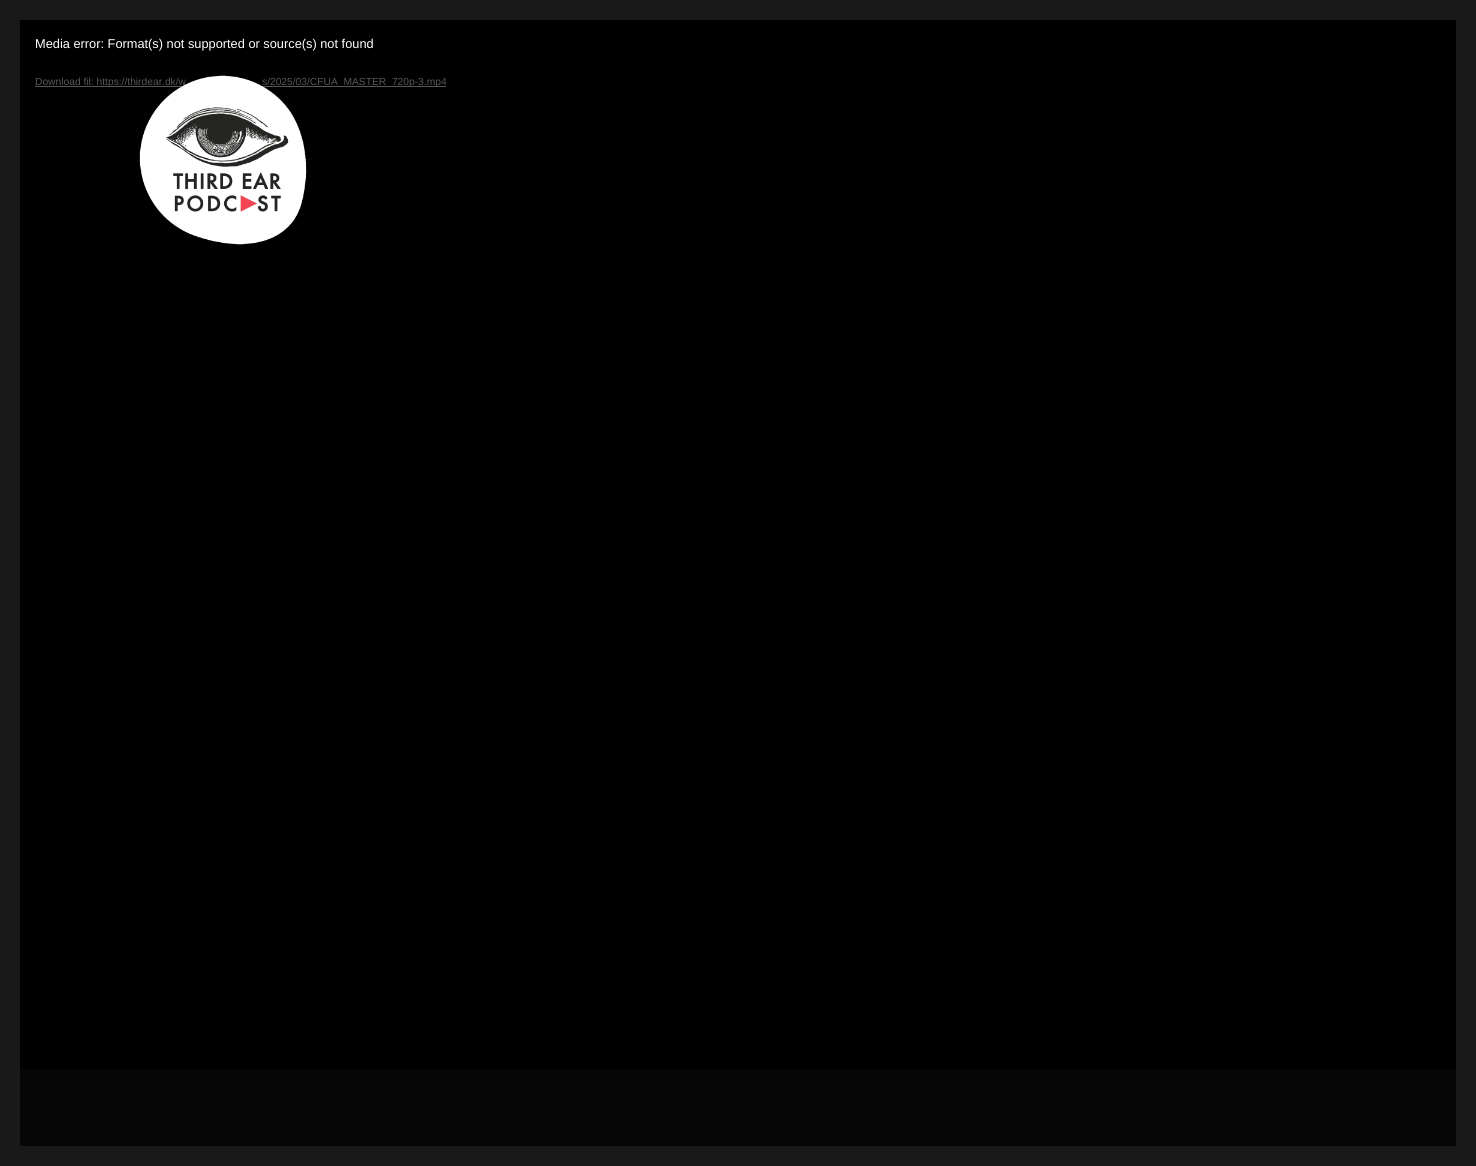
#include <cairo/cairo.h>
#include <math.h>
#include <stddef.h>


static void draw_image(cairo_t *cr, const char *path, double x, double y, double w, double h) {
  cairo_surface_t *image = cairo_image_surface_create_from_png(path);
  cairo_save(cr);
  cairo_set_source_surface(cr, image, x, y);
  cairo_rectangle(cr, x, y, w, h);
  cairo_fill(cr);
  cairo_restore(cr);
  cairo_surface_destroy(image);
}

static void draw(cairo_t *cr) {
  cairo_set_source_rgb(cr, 25 / 255.0, 25 / 255.0, 25 / 255.0);
  cairo_paint(cr);
  cairo_set_source_rgb(cr, 0, 0, 0);
  cairo_rectangle(cr, 20, 20, 1436, 1049);
  cairo_fill(cr);
  cairo_set_source_rgb(cr, 87 / 255.0, 87 / 255.0, 87 / 255.0);
  cairo_rectangle(cr, 35, 86, 411, 1);
  cairo_fill(cr);
  cairo_set_source_rgb(cr, 6 / 255.0, 6 / 255.0, 6 / 255.0);
  cairo_rectangle(cr, 20, 1069, 1436, 77);
  cairo_fill(cr);
  cairo_select_font_face(cr, "Liberation Sans", CAIRO_FONT_SLANT_NORMAL, CAIRO_FONT_WEIGHT_NORMAL);
  cairo_set_font_size(cr, 12.8);
  cairo_set_source_rgb(cr, 1, 1, 1);
  cairo_move_to(cr, 35, 48);
  cairo_show_text(cr, "Media error: Format(s) not supported or source(s) not found");
  cairo_set_font_size(cr, 10.25);
  cairo_set_source_rgb(cr, 87 / 255.0, 87 / 255.0, 87 / 255.0);
  cairo_move_to(cr, 35, 85);
  cairo_show_text(cr, "Download fil: https://thirdear.dk/w");
  cairo_move_to(cr, 262, 85);
  cairo_show_text(cr, "s/2025/03/CFUA_MASTER_720p-3.mp4");
  draw_image(cr, "images/1.png", 139, 75, 168, 170);
}

int main(void) {
  cairo_surface_t *surface = cairo_image_surface_create(CAIRO_FORMAT_RGB24, 1476, 1166);
  cairo_t *cr = cairo_create(surface);
  cairo_font_options_t *options = cairo_font_options_create();
  cairo_font_options_set_hint_metrics(options, CAIRO_HINT_METRICS_OFF);
  cairo_font_options_set_hint_style(options, CAIRO_HINT_STYLE_NONE);
  cairo_set_font_options(cr, options);
  cairo_set_miter_limit(cr, 4);
  draw(cr);
  cairo_surface_write_to_png(surface, "out.png");
  cairo_font_options_destroy(options);
  cairo_destroy(cr);
  cairo_surface_destroy(surface);
  return 0;
}
